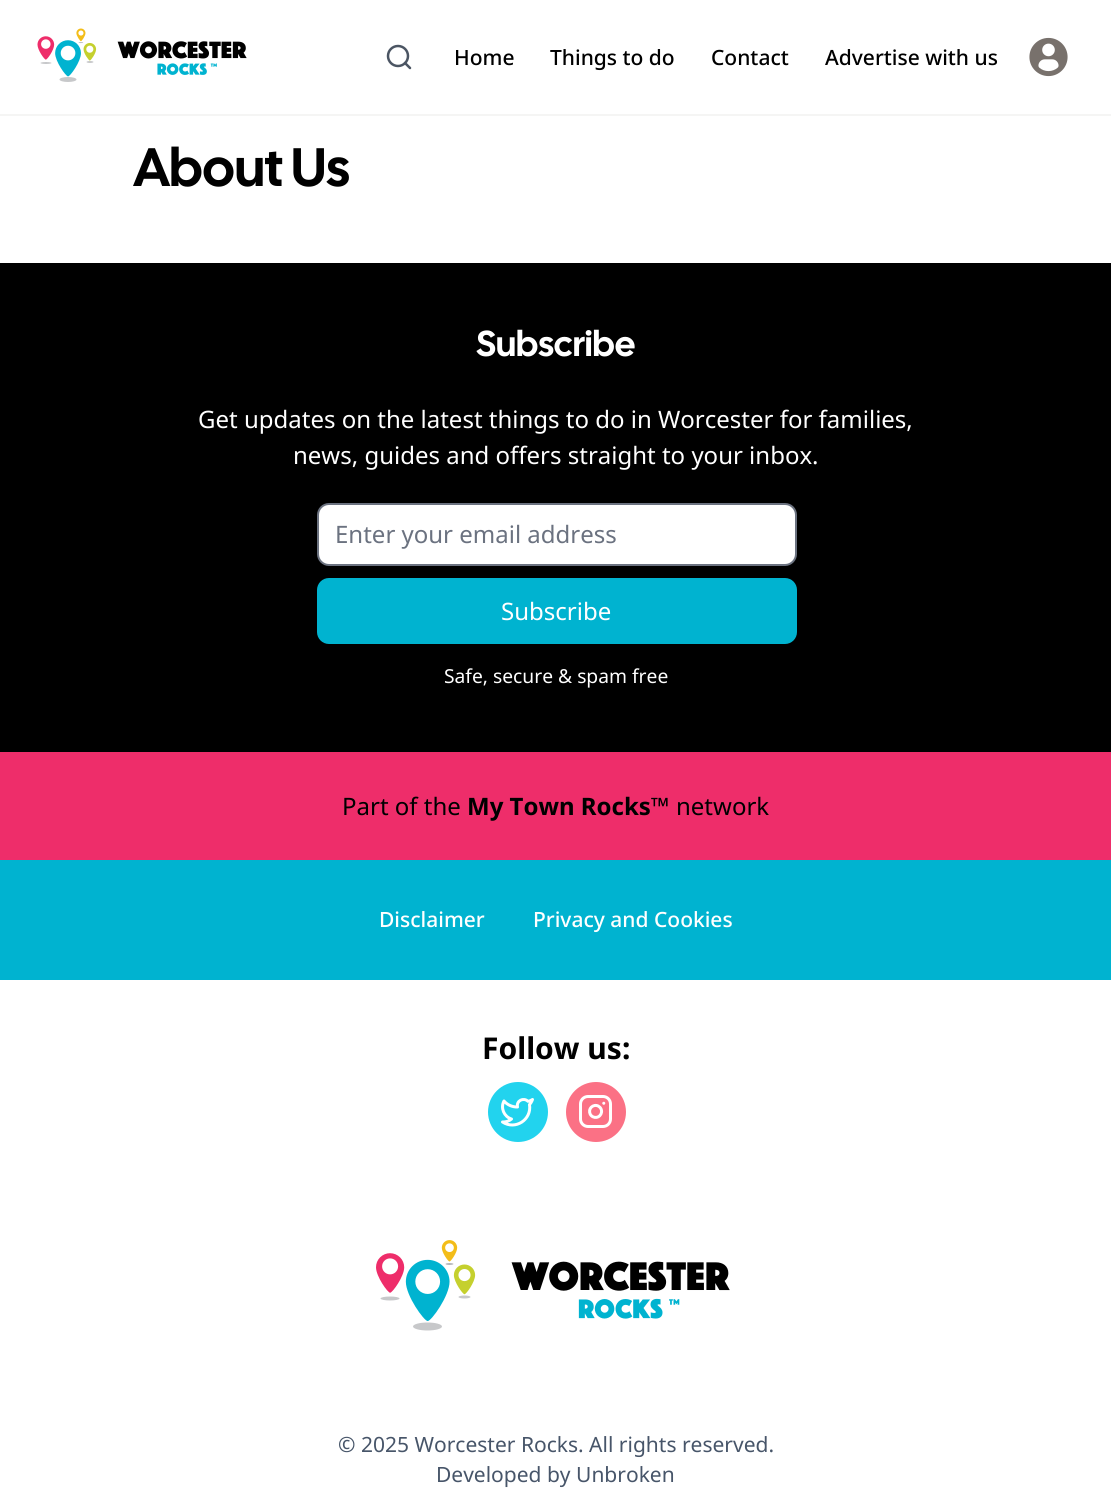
#include <cairo/cairo.h>
#include <math.h>
#include <stddef.h>


static void rounded_rect(cairo_t *cr, double x, double y, double w, double h, double r) {
  cairo_new_sub_path(cr);
  cairo_arc(cr, x + w - r, y + h - r, r, 0, M_PI / 2);
  cairo_arc(cr, x + r, y + h - r, r, M_PI / 2, M_PI);
  cairo_arc(cr, x + r, y + r, r, M_PI, 1.5 * M_PI);
  cairo_arc(cr, x + w - r, y + r, r, 1.5 * M_PI, 2 * M_PI);
  cairo_close_path(cr);
}

static void draw_image(cairo_t *cr, const char *path, double x, double y, double w, double h) {
  cairo_surface_t *image = cairo_image_surface_create_from_png(path);
  cairo_save(cr);
  cairo_set_source_surface(cr, image, x, y);
  cairo_rectangle(cr, x, y, w, h);
  cairo_fill(cr);
  cairo_restore(cr);
  cairo_surface_destroy(image);
}

static void draw(cairo_t *cr) {
  cairo_set_source_rgb(cr, 1, 1, 1);
  cairo_paint(cr);
  cairo_set_source_rgb(cr, 245 / 255.0, 245 / 255.0, 244 / 255.0);
  cairo_rectangle(cr, 0, 114, 1111, 2);
  cairo_fill(cr);
  draw_image(cr, "images/1.png", 37, 28, 210, 54);
  cairo_arc(cr, 398, 56, 10, 0, 2 * M_PI);
  cairo_set_source_rgb(cr, 75 / 255.0, 85 / 255.0, 99 / 255.0);
  cairo_set_line_width(cr, 2.5);
  cairo_stroke(cr);
  cairo_new_path(cr);
  cairo_move_to(cr, 410, 68);
  cairo_line_to(cr, 405, 63);
  cairo_set_line_cap(cr, CAIRO_LINE_CAP_ROUND);
  cairo_set_line_join(cr, CAIRO_LINE_JOIN_ROUND);
  cairo_stroke(cr);
  draw_image(cr, "images/2.png", 1029, 37, 39, 40);
  cairo_set_source_rgb(cr, 0, 0, 0);
  cairo_rectangle(cr, 0, 263, 1111, 489);
  cairo_fill(cr);
  cairo_set_source_rgb(cr, 1, 1, 1);
  rounded_rect(cr, 318, 504, 478, 61, 11);
  cairo_fill_preserve(cr);
  cairo_set_source_rgb(cr, 107 / 255.0, 114 / 255.0, 128 / 255.0);
  cairo_set_line_width(cr, 2);
  cairo_set_line_cap(cr, CAIRO_LINE_CAP_BUTT);
  cairo_set_line_join(cr, CAIRO_LINE_JOIN_MITER);
  cairo_stroke(cr);
  cairo_set_source_rgb(cr, 0, 179 / 255.0, 208 / 255.0);
  rounded_rect(cr, 317, 578, 480, 66, 12);
  cairo_fill(cr);
  cairo_set_source_rgb(cr, 238 / 255.0, 45 / 255.0, 106 / 255.0);
  cairo_rectangle(cr, 0, 752, 1111, 108);
  cairo_fill(cr);
  cairo_set_source_rgb(cr, 0, 179 / 255.0, 208 / 255.0);
  cairo_rectangle(cr, 0, 860, 1111, 120);
  cairo_fill(cr);
  cairo_set_source_rgb(cr, 34 / 255.0, 211 / 255.0, 238 / 255.0);
  cairo_arc(cr, 518, 1112, 30, 0, 2 * M_PI);
  cairo_fill(cr);
  draw_image(cr, "images/3.png", 501, 1098, 33, 29);
  cairo_set_source_rgb(cr, 251 / 255.0, 113 / 255.0, 133 / 255.0);
  cairo_arc(cr, 596, 1112, 30, 0, 2 * M_PI);
  cairo_fill(cr);
  draw_image(cr, "images/4.png", 579, 1095, 33, 33);
  draw_image(cr, "images/5.png", 376, 1240, 354, 91);
  cairo_select_font_face(cr, "Noto Sans Medium", CAIRO_FONT_SLANT_NORMAL, CAIRO_FONT_WEIGHT_NORMAL);
  cairo_set_font_size(cr, 21);
  cairo_set_source_rgb(cr, 0, 0, 0);
  cairo_move_to(cr, 454, 65);
  cairo_show_text(cr, "Home");
  cairo_move_to(cr, 550, 65);
  cairo_show_text(cr, "Things to do");
  cairo_move_to(cr, 711, 65);
  cairo_show_text(cr, "Contact");
  cairo_move_to(cr, 825, 65);
  cairo_show_text(cr, "Advertise with us");
  cairo_select_font_face(cr, "Cal Sans SemiBold", CAIRO_FONT_SLANT_NORMAL, CAIRO_FONT_WEIGHT_NORMAL);
  cairo_set_font_size(cr, 54);
  cairo_move_to(cr, 134, 186);
  cairo_show_text(cr, "About Us");
  cairo_set_font_size(cr, 36);
  cairo_set_source_rgb(cr, 1, 1, 1);
  cairo_move_to(cr, 476, 356);
  cairo_show_text(cr, "Subscribe");
  cairo_select_font_face(cr, "Noto Sans", CAIRO_FONT_SLANT_NORMAL, CAIRO_FONT_WEIGHT_NORMAL);
  cairo_set_font_size(cr, 24);
  cairo_move_to(cr, 198, 428);
  cairo_show_text(cr, "Get updates on the latest things to do in Worcester for families,");
  cairo_move_to(cr, 293, 464);
  cairo_show_text(cr, "news, guides and offers straight to your inbox.");
  cairo_set_source_rgb(cr, 107 / 255.0, 114 / 255.0, 128 / 255.0);
  cairo_move_to(cr, 335, 543);
  cairo_show_text(cr, "Enter your email address");
  cairo_set_source_rgb(cr, 1, 1, 1);
  cairo_move_to(cr, 501, 620);
  cairo_show_text(cr, "Subscribe");
  cairo_set_font_size(cr, 19.25);
  cairo_move_to(cr, 444, 683);
  cairo_show_text(cr, "Safe, secure & spam free");
  cairo_set_font_size(cr, 24);
  cairo_set_source_rgb(cr, 0, 0, 0);
  cairo_move_to(cr, 342, 815);
  cairo_show_text(cr, "Part of the");
  cairo_select_font_face(cr, "Noto Sans", CAIRO_FONT_SLANT_NORMAL, CAIRO_FONT_WEIGHT_BOLD);
  cairo_move_to(cr, 467, 815);
  cairo_show_text(cr, "My Town Rocks™");
  cairo_select_font_face(cr, "Noto Sans", CAIRO_FONT_SLANT_NORMAL, CAIRO_FONT_WEIGHT_NORMAL);
  cairo_move_to(cr, 676, 815);
  cairo_show_text(cr, "network");
  cairo_select_font_face(cr, "Noto Sans Medium", CAIRO_FONT_SLANT_NORMAL, CAIRO_FONT_WEIGHT_NORMAL);
  cairo_set_font_size(cr, 21);
  cairo_set_source_rgb(cr, 1, 1, 1);
  cairo_move_to(cr, 379, 927);
  cairo_show_text(cr, "Disclaimer");
  cairo_move_to(cr, 533, 927);
  cairo_show_text(cr, "Privacy and Cookies");
  cairo_select_font_face(cr, "Noto Sans", CAIRO_FONT_SLANT_NORMAL, CAIRO_FONT_WEIGHT_BOLD);
  cairo_set_font_size(cr, 30);
  cairo_set_source_rgb(cr, 0, 0, 0);
  cairo_move_to(cr, 482, 1059);
  cairo_show_text(cr, "Follow us:");
  cairo_select_font_face(cr, "Noto Sans", CAIRO_FONT_SLANT_NORMAL, CAIRO_FONT_WEIGHT_NORMAL);
  cairo_set_font_size(cr, 21);
  cairo_set_source_rgb(cr, 71 / 255.0, 85 / 255.0, 105 / 255.0);
  cairo_move_to(cr, 338, 1452);
  cairo_show_text(cr, "© 2025 Worcester Rocks. All rights reserved.");
  cairo_move_to(cr, 436, 1482);
  cairo_show_text(cr, "Developed by Unbroken");
}

int main(void) {
  cairo_surface_t *surface = cairo_image_surface_create(CAIRO_FORMAT_RGB24, 1111, 1506);
  cairo_t *cr = cairo_create(surface);
  cairo_font_options_t *options = cairo_font_options_create();
  cairo_font_options_set_hint_metrics(options, CAIRO_HINT_METRICS_OFF);
  cairo_font_options_set_hint_style(options, CAIRO_HINT_STYLE_NONE);
  cairo_set_font_options(cr, options);
  cairo_set_miter_limit(cr, 4);
  draw(cr);
  cairo_surface_write_to_png(surface, "out.png");
  cairo_font_options_destroy(options);
  cairo_destroy(cr);
  cairo_surface_destroy(surface);
  return 0;
}
